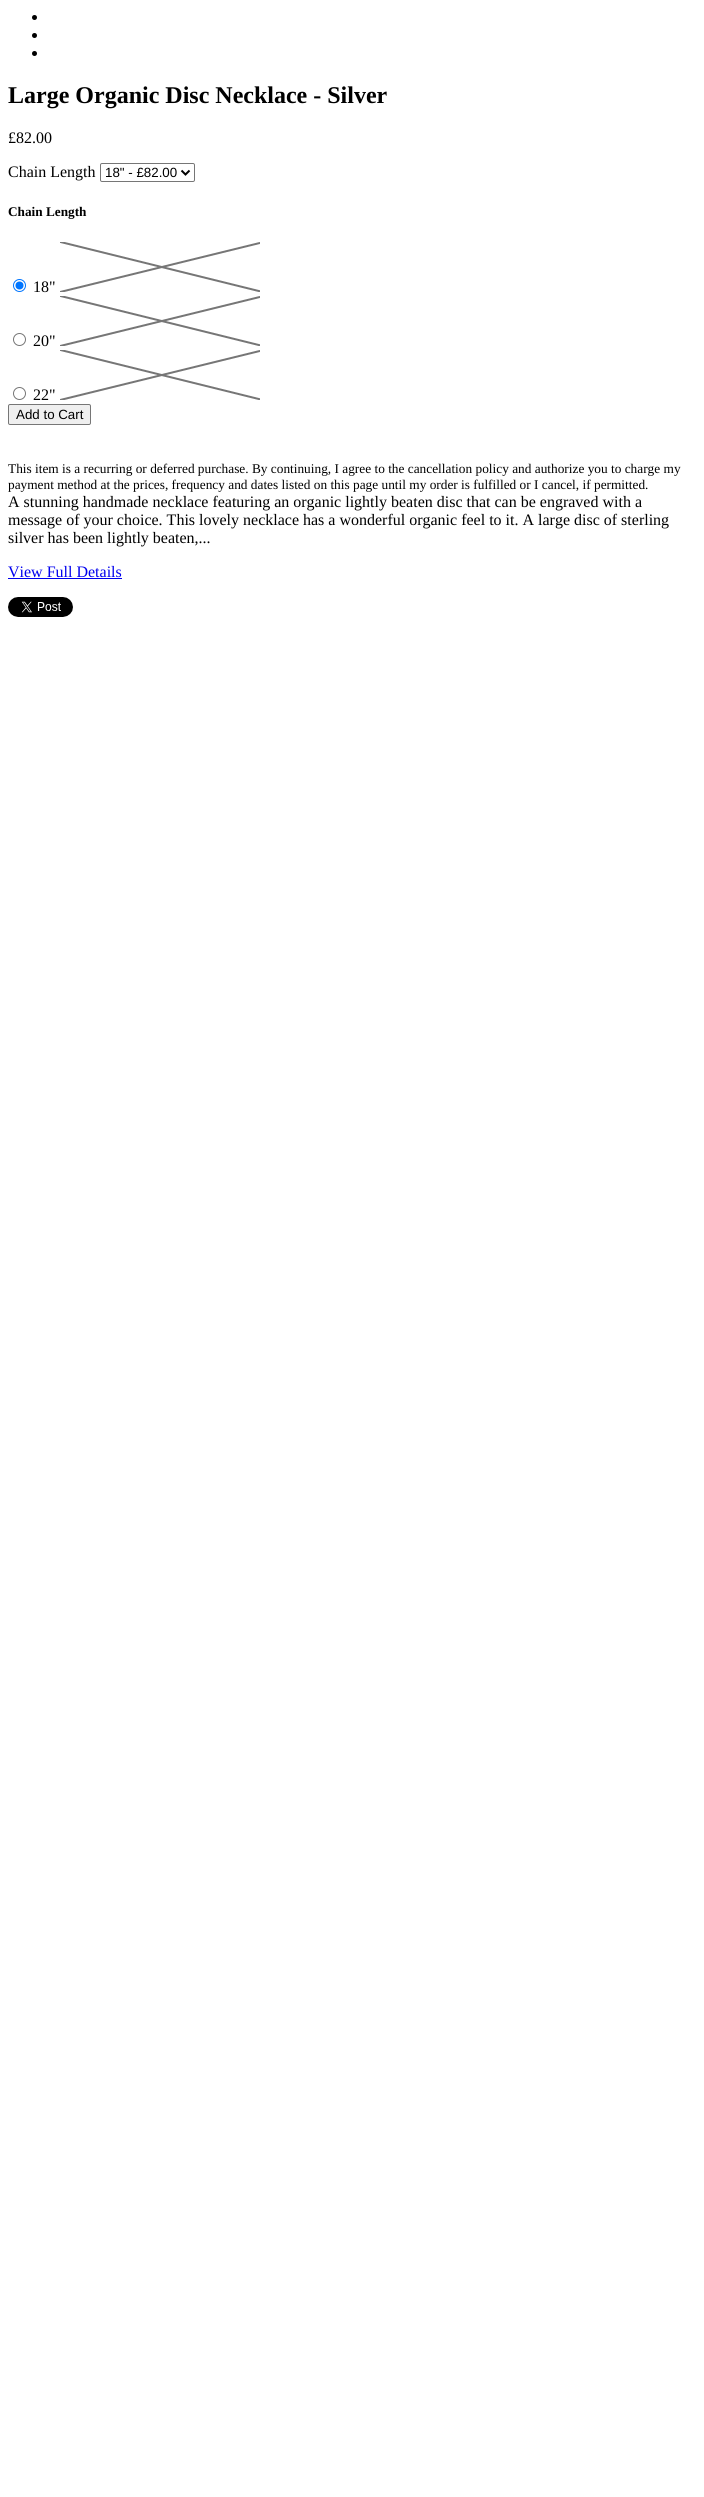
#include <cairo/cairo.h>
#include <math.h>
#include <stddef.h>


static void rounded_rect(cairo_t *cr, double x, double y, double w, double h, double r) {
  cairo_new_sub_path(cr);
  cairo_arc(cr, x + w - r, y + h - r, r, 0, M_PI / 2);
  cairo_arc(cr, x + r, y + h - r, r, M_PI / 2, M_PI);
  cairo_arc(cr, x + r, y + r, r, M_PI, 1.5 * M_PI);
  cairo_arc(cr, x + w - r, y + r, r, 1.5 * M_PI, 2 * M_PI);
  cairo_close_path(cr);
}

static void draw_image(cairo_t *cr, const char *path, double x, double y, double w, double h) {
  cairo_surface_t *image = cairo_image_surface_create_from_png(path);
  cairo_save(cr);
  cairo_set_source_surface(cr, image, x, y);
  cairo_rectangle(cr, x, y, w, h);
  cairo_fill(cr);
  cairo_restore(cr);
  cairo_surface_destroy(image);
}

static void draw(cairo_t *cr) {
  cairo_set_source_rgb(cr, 1, 1, 1);
  cairo_paint(cr);
  cairo_set_source_rgb(cr, 0, 0, 0);
  cairo_arc(cr, 34.5, 17.5, 2.5, 0, 2 * M_PI);
  cairo_fill(cr);
  cairo_arc(cr, 34.5, 35.5, 2.5, 0, 2 * M_PI);
  cairo_fill(cr);
  cairo_arc(cr, 34.5, 53.5, 2.5, 0, 2 * M_PI);
  cairo_fill(cr);
  rounded_rect(cr, 100.5, 163.5, 94, 18, 1.5);
  cairo_set_source_rgb(cr, 118 / 255.0, 118 / 255.0, 118 / 255.0);
  cairo_set_line_width(cr, 1);
  cairo_stroke(cr);
  cairo_new_path(cr);
  cairo_move_to(cr, 181.5, 170.5);
  cairo_line_to(cr, 185.5, 174.5);
  cairo_line_to(cr, 189.5, 170.5);
  cairo_set_source_rgb(cr, 0, 0, 0);
  cairo_set_line_width(cr, 2);
  cairo_stroke(cr);
  cairo_arc(cr, 19.5, 285.5, 6, 0, 2 * M_PI);
  cairo_set_source_rgb(cr, 0, 117 / 255.0, 1);
  cairo_set_line_width(cr, 1);
  cairo_stroke(cr);
  cairo_arc(cr, 19.5, 285.5, 4, 0, 2 * M_PI);
  cairo_fill(cr);
  draw_image(cr, "images/1.png", 60, 242, 200, 50);
  cairo_arc(cr, 19.5, 339.5, 6, 0, 2 * M_PI);
  cairo_set_source_rgb(cr, 118 / 255.0, 118 / 255.0, 118 / 255.0);
  cairo_stroke(cr);
  draw_image(cr, "images/1.png", 60, 296, 200, 50);
  cairo_arc(cr, 19.5, 393.5, 6, 0, 2 * M_PI);
  cairo_stroke(cr);
  draw_image(cr, "images/1.png", 60, 350, 200, 50);
  cairo_set_source_rgb(cr, 239 / 255.0, 239 / 255.0, 239 / 255.0);
  rounded_rect(cr, 8.5, 404.5, 82, 20, 1.5);
  cairo_fill_preserve(cr);
  cairo_set_source_rgb(cr, 118 / 255.0, 118 / 255.0, 118 / 255.0);
  cairo_stroke(cr);
  cairo_set_source_rgb(cr, 0, 0, 238 / 255.0);
  cairo_rectangle(cr, 8, 578, 114, 1);
  cairo_fill(cr);
  draw_image(cr, "images/2.png", 8, 597, 65, 20);
  cairo_select_font_face(cr, "Liberation Serif", CAIRO_FONT_SLANT_NORMAL, CAIRO_FONT_WEIGHT_BOLD);
  cairo_set_font_size(cr, 24);
  cairo_set_source_rgb(cr, 0, 0, 0);
  cairo_move_to(cr, 8, 103);
  cairo_show_text(cr, "Large Organic Disc Necklace - Silver");
  cairo_select_font_face(cr, "Liberation Serif", CAIRO_FONT_SLANT_NORMAL, CAIRO_FONT_WEIGHT_NORMAL);
  cairo_set_font_size(cr, 16);
  cairo_move_to(cr, 8, 143);
  cairo_show_text(cr, "£82.00");
  cairo_move_to(cr, 8, 177);
  cairo_show_text(cr, "Chain Length");
  cairo_select_font_face(cr, "Liberation Sans", CAIRO_FONT_SLANT_NORMAL, CAIRO_FONT_WEIGHT_NORMAL);
  cairo_set_font_size(cr, 13.33);
  cairo_move_to(cr, 105, 177);
  cairo_show_text(cr, "18\" - £82.00");
  cairo_select_font_face(cr, "Liberation Serif", CAIRO_FONT_SLANT_NORMAL, CAIRO_FONT_WEIGHT_BOLD);
  cairo_set_font_size(cr, 13.25);
  cairo_move_to(cr, 8, 216);
  cairo_show_text(cr, "Chain Length");
  cairo_select_font_face(cr, "Liberation Serif", CAIRO_FONT_SLANT_NORMAL, CAIRO_FONT_WEIGHT_NORMAL);
  cairo_set_font_size(cr, 16);
  cairo_move_to(cr, 33, 292);
  cairo_show_text(cr, "18\"");
  cairo_move_to(cr, 33, 346);
  cairo_show_text(cr, "20\"");
  cairo_move_to(cr, 33, 400);
  cairo_show_text(cr, "22\"");
  cairo_select_font_face(cr, "Liberation Sans", CAIRO_FONT_SLANT_NORMAL, CAIRO_FONT_WEIGHT_NORMAL);
  cairo_set_font_size(cr, 13.33);
  cairo_move_to(cr, 16, 419);
  cairo_show_text(cr, "Add to Cart");
  cairo_select_font_face(cr, "Liberation Serif", CAIRO_FONT_SLANT_NORMAL, CAIRO_FONT_WEIGHT_NORMAL);
  cairo_move_to(cr, 8, 473);
  cairo_show_text(cr, "This item is a recurring or deferred purchase. By continuing, I agree to the cancellation policy and authorize you to charge my");
  cairo_move_to(cr, 8, 489);
  cairo_show_text(cr, "payment method at the prices, frequency and dates listed on this page until my order is fulfilled or I cancel, if permitted.");
  cairo_set_font_size(cr, 16);
  cairo_move_to(cr, 8, 507);
  cairo_show_text(cr, "A stunning handmade necklace featuring an organic lightly beaten disc that can be engraved with a");
  cairo_move_to(cr, 8, 525);
  cairo_show_text(cr, "message of your choice. This lovely necklace has a wonderful organic feel to it. A large disc of sterling");
  cairo_move_to(cr, 8, 543);
  cairo_show_text(cr, "silver has been lightly beaten,...");
  cairo_set_source_rgb(cr, 0, 0, 238 / 255.0);
  cairo_move_to(cr, 8, 577);
  cairo_show_text(cr, "View Full Details");
}

int main(void) {
  cairo_surface_t *surface = cairo_image_surface_create(CAIRO_FORMAT_RGB24, 704, 2497);
  cairo_t *cr = cairo_create(surface);
  cairo_font_options_t *options = cairo_font_options_create();
  cairo_font_options_set_hint_metrics(options, CAIRO_HINT_METRICS_OFF);
  cairo_font_options_set_hint_style(options, CAIRO_HINT_STYLE_NONE);
  cairo_set_font_options(cr, options);
  cairo_set_miter_limit(cr, 4);
  draw(cr);
  cairo_surface_write_to_png(surface, "out.png");
  cairo_font_options_destroy(options);
  cairo_destroy(cr);
  cairo_surface_destroy(surface);
  return 0;
}
